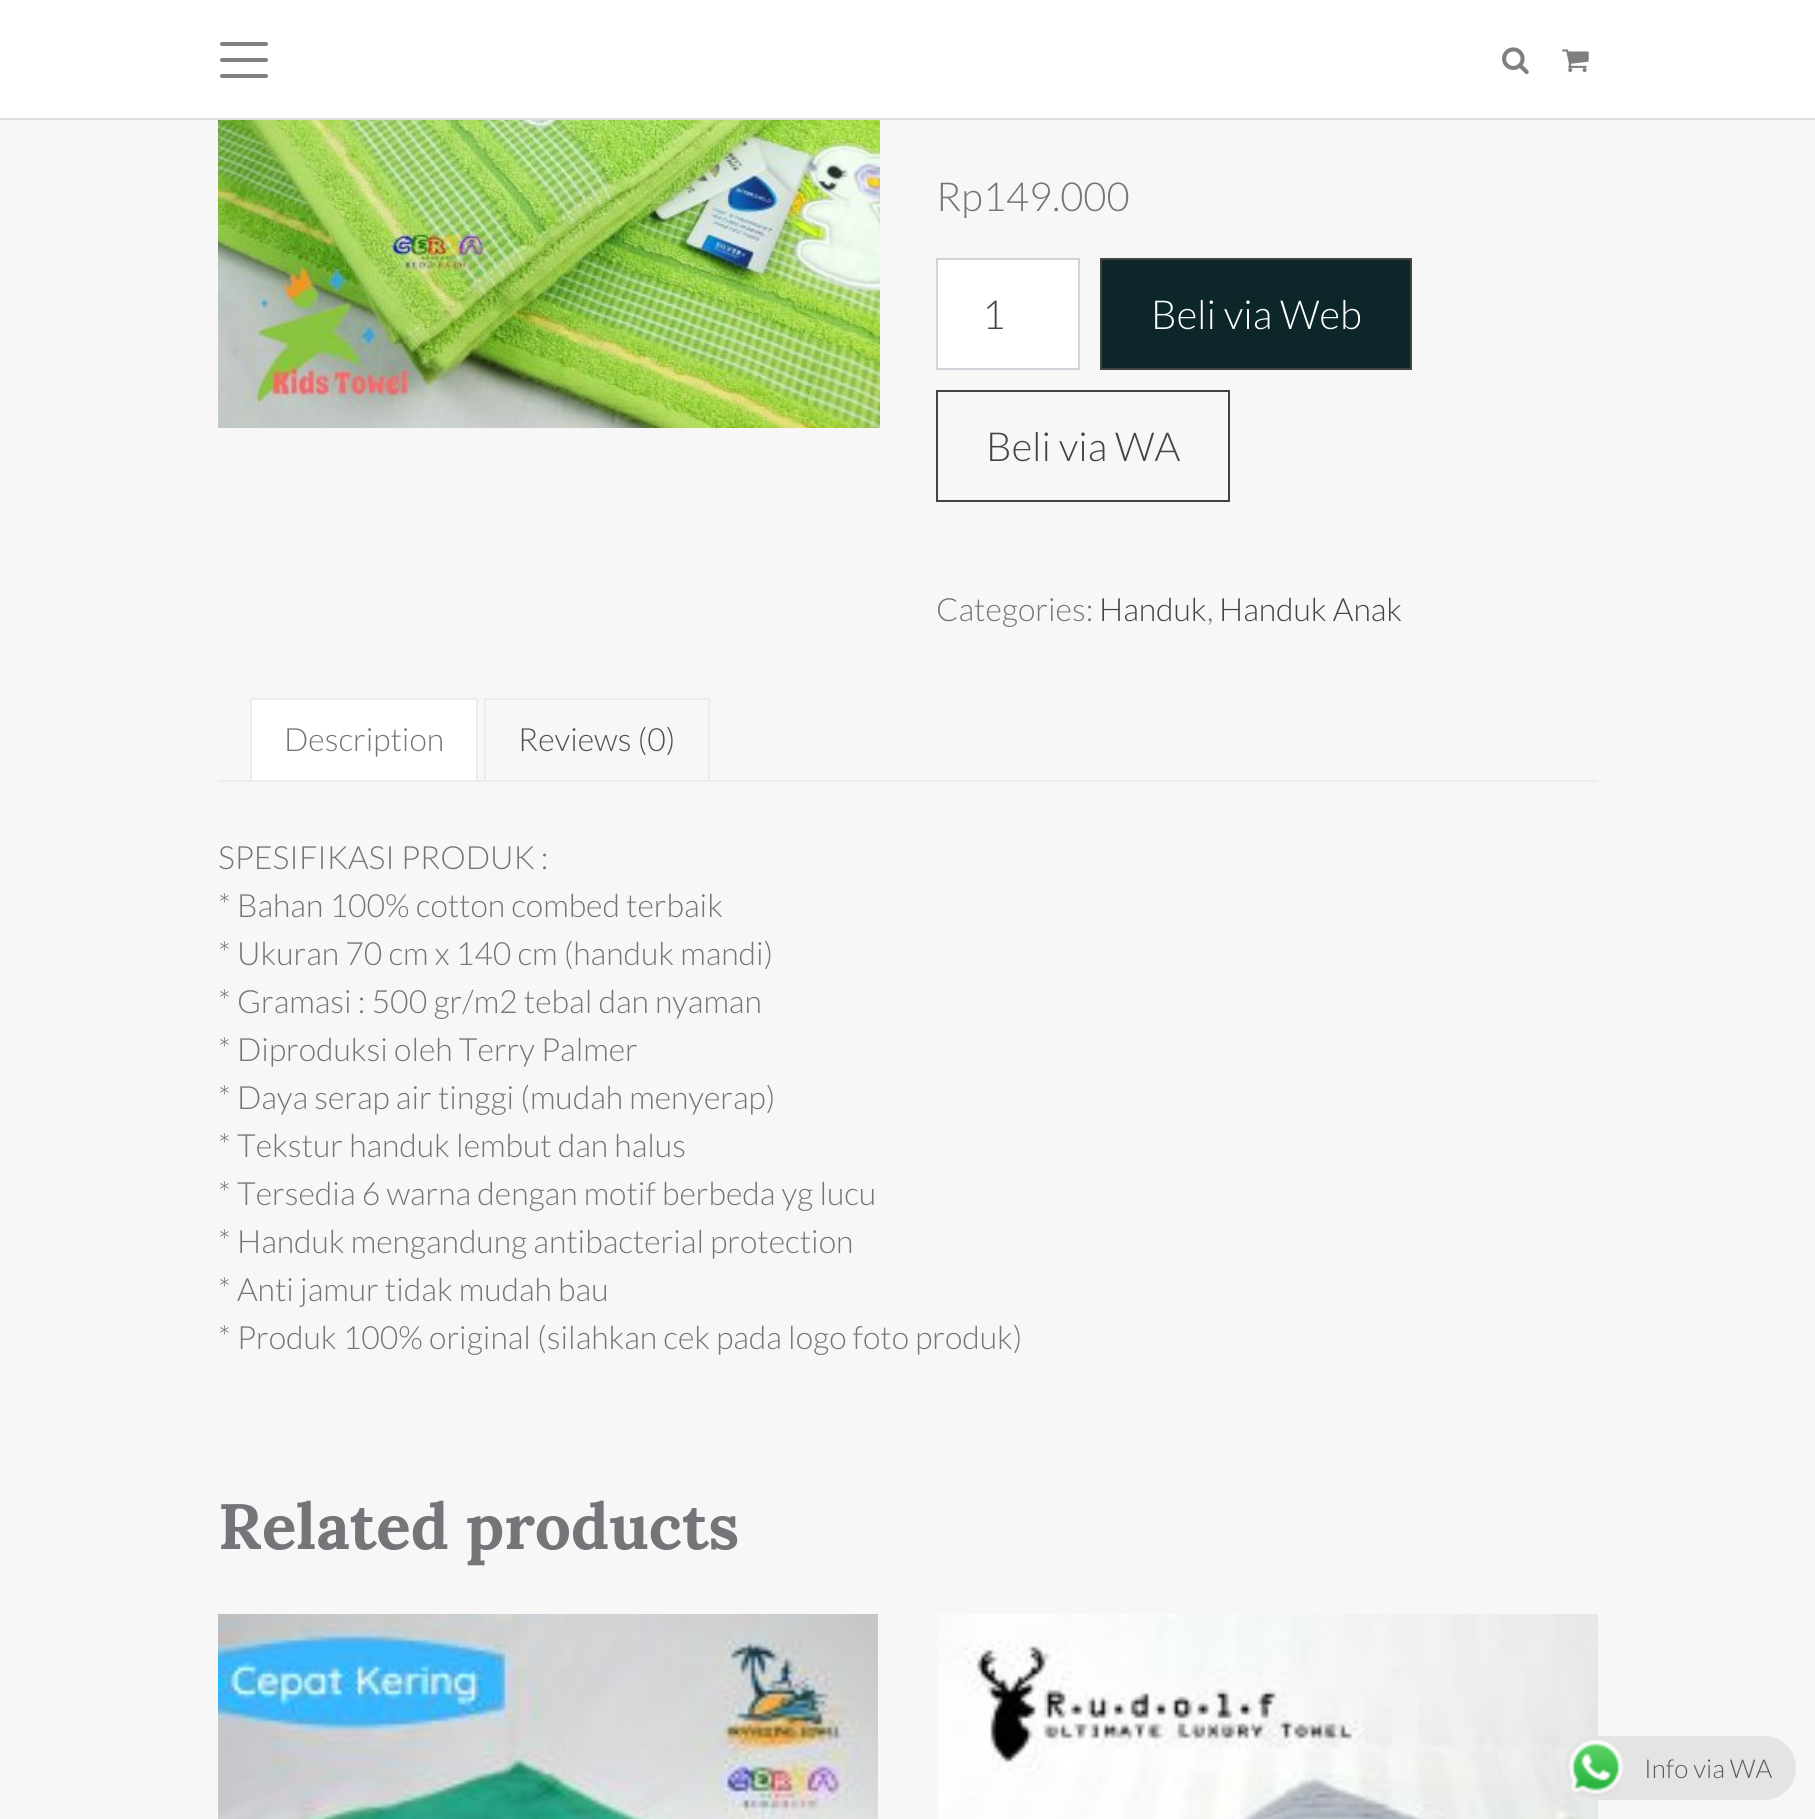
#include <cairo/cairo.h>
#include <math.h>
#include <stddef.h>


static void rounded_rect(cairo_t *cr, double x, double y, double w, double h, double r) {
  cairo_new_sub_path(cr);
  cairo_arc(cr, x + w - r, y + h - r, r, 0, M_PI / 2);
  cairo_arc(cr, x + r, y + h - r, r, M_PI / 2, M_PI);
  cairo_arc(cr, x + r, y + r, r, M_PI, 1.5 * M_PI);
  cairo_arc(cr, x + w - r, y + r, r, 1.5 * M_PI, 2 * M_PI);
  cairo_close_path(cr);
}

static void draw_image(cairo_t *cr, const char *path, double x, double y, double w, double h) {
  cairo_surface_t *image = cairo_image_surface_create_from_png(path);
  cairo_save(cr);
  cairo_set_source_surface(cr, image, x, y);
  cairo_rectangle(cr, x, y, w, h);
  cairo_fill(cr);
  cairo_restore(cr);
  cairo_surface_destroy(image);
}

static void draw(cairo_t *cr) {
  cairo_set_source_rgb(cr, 247 / 255.0, 247 / 255.0, 247 / 255.0);
  cairo_paint(cr);
  cairo_set_source_rgb(cr, 1, 1, 1);
  cairo_rectangle(cr, 0, 0, 1815, 118);
  cairo_fill(cr);
  cairo_set_source_rgb(cr, 223 / 255.0, 223 / 255.0, 223 / 255.0);
  cairo_rectangle(cr, 0, 118, 1815, 2);
  cairo_fill(cr);
  cairo_new_path(cr);
  cairo_move_to(cr, 222, 44);
  cairo_line_to(cr, 266, 44);
  cairo_move_to(cr, 222, 60);
  cairo_line_to(cr, 266, 60);
  cairo_move_to(cr, 222, 76);
  cairo_line_to(cr, 266, 76);
  cairo_set_source_rgb(cr, 128 / 255.0, 128 / 255.0, 128 / 255.0);
  cairo_set_line_width(cr, 4);
  cairo_set_line_cap(cr, CAIRO_LINE_CAP_ROUND);
  cairo_stroke(cr);
  draw_image(cr, "images/1.png", 1502, 47, 27, 28);
  draw_image(cr, "images/2.png", 1562, 49, 27, 23);
  draw_image(cr, "images/3.png", 218, 120, 662, 308);
  cairo_set_source_rgb(cr, 1, 1, 1);
  cairo_rectangle(cr, 937, 259, 142, 110);
  cairo_fill_preserve(cr);
  cairo_set_source_rgb(cr, 206 / 255.0, 212 / 255.0, 218 / 255.0);
  cairo_set_line_width(cr, 2);
  cairo_set_line_cap(cr, CAIRO_LINE_CAP_BUTT);
  cairo_stroke(cr);
  cairo_set_source_rgb(cr, 13 / 255.0, 38 / 255.0, 42 / 255.0);
  cairo_rectangle(cr, 1101, 259, 310, 110);
  cairo_fill_preserve(cr);
  cairo_set_source_rgb(cr, 68 / 255.0, 68 / 255.0, 68 / 255.0);
  cairo_stroke(cr);
  cairo_rectangle(cr, 937, 391, 292, 110);
  cairo_stroke(cr);
  cairo_set_source_rgb(cr, 1, 1, 1);
  cairo_rectangle(cr, 252, 700, 224, 80);
  cairo_fill(cr);
  cairo_set_source_rgb(cr, 236 / 255.0, 236 / 255.0, 236 / 255.0);
  cairo_rectangle(cr, 250, 698, 228, 2);
  cairo_fill(cr);
  cairo_rectangle(cr, 476, 698, 2, 84);
  cairo_fill(cr);
  cairo_rectangle(cr, 250, 698, 2, 84);
  cairo_fill(cr);
  cairo_rectangle(cr, 485, 699, 224, 82);
  cairo_stroke(cr);
  cairo_rectangle(cr, 218, 780, 1380, 2);
  cairo_fill(cr);
  draw_image(cr, "images/4.png", 218, 1614, 660, 205);
  draw_image(cr, "images/5.png", 938, 1614, 660, 205);
  cairo_set_source_rgb(cr, 228 / 255.0, 228 / 255.0, 228 / 255.0);
  rounded_rect(cr, 1564, 1736, 232, 64, 32);
  cairo_fill(cr);
  draw_image(cr, "images/6.png", 1568, 1739, 56, 57);
  cairo_select_font_face(cr, "Lato Light", CAIRO_FONT_SLANT_NORMAL, CAIRO_FONT_WEIGHT_NORMAL);
  cairo_set_font_size(cr, 40);
  cairo_set_source_rgb(cr, 116 / 255.0, 117 / 255.0, 120 / 255.0);
  cairo_move_to(cr, 936, 211);
  cairo_show_text(cr, "Rp149.000");
  cairo_set_source_rgb(cr, 68 / 255.0, 68 / 255.0, 68 / 255.0);
  cairo_move_to(cr, 982, 329);
  cairo_show_text(cr, "1");
  cairo_set_source_rgb(cr, 1, 1, 1);
  cairo_move_to(cr, 1151, 329);
  cairo_show_text(cr, "Beli via Web");
  cairo_set_source_rgb(cr, 68 / 255.0, 68 / 255.0, 68 / 255.0);
  cairo_move_to(cr, 986, 461);
  cairo_show_text(cr, "Beli via WA");
  cairo_set_font_size(cr, 32);
  cairo_set_source_rgb(cr, 116 / 255.0, 117 / 255.0, 120 / 255.0);
  cairo_move_to(cr, 936, 621);
  cairo_show_text(cr, "Categories:");
  cairo_set_source_rgb(cr, 68 / 255.0, 68 / 255.0, 68 / 255.0);
  cairo_move_to(cr, 1099, 621);
  cairo_show_text(cr, "Handuk");
  cairo_set_source_rgb(cr, 116 / 255.0, 117 / 255.0, 120 / 255.0);
  cairo_move_to(cr, 1207, 621);
  cairo_show_text(cr, ",");
  cairo_set_source_rgb(cr, 68 / 255.0, 68 / 255.0, 68 / 255.0);
  cairo_move_to(cr, 1219, 621);
  cairo_show_text(cr, "Handuk Anak");
  cairo_set_source_rgb(cr, 116 / 255.0, 117 / 255.0, 120 / 255.0);
  cairo_move_to(cr, 284, 751);
  cairo_show_text(cr, "Description");
  cairo_set_source_rgb(cr, 81 / 255.0, 81 / 255.0, 81 / 255.0);
  cairo_move_to(cr, 518, 751);
  cairo_show_text(cr, "Reviews (0)");
  cairo_set_source_rgb(cr, 116 / 255.0, 117 / 255.0, 120 / 255.0);
  cairo_move_to(cr, 218, 869);
  cairo_show_text(cr, "SPESIFIKASI PRODUK :");
  cairo_move_to(cr, 218, 917);
  cairo_show_text(cr, "* Bahan 100% cotton combed terbaik");
  cairo_move_to(cr, 218, 965);
  cairo_show_text(cr, "* Ukuran 70 cm x 140 cm (handuk mandi)");
  cairo_move_to(cr, 218, 1013);
  cairo_show_text(cr, "* Gramasi : 500 gr/m2 tebal dan nyaman");
  cairo_move_to(cr, 218, 1061);
  cairo_show_text(cr, "* Diproduksi oleh Terry Palmer");
  cairo_move_to(cr, 218, 1109);
  cairo_show_text(cr, "* Daya serap air tinggi (mudah menyerap)");
  cairo_move_to(cr, 218, 1157);
  cairo_show_text(cr, "* Tekstur handuk lembut dan halus");
  cairo_move_to(cr, 218, 1205);
  cairo_show_text(cr, "* Tersedia 6 warna dengan motif berbeda yg lucu");
  cairo_move_to(cr, 218, 1253);
  cairo_show_text(cr, "* Handuk mengandung antibacterial protection");
  cairo_move_to(cr, 218, 1301);
  cairo_show_text(cr, "* Anti jamur tidak mudah bau");
  cairo_move_to(cr, 218, 1349);
  cairo_show_text(cr, "* Produk 100% original (silahkan cek pada logo foto produk)");
  cairo_select_font_face(cr, "Lora", CAIRO_FONT_SLANT_NORMAL, CAIRO_FONT_WEIGHT_BOLD);
  cairo_set_font_size(cr, 64);
  cairo_move_to(cr, 218, 1549);
  cairo_show_text(cr, "Related products");
  cairo_select_font_face(cr, "Lato Light", CAIRO_FONT_SLANT_NORMAL, CAIRO_FONT_WEIGHT_NORMAL);
  cairo_set_font_size(cr, 26);
  cairo_set_source_rgb(cr, 91 / 255.0, 91 / 255.0, 91 / 255.0);
  cairo_move_to(cr, 1644, 1778);
  cairo_show_text(cr, "Info via WA");
}

int main(void) {
  cairo_surface_t *surface = cairo_image_surface_create(CAIRO_FORMAT_RGB24, 1815, 1819);
  cairo_t *cr = cairo_create(surface);
  cairo_font_options_t *options = cairo_font_options_create();
  cairo_font_options_set_hint_metrics(options, CAIRO_HINT_METRICS_OFF);
  cairo_font_options_set_hint_style(options, CAIRO_HINT_STYLE_NONE);
  cairo_set_font_options(cr, options);
  cairo_set_miter_limit(cr, 4);
  draw(cr);
  cairo_surface_write_to_png(surface, "out.png");
  cairo_font_options_destroy(options);
  cairo_destroy(cr);
  cairo_surface_destroy(surface);
  return 0;
}
